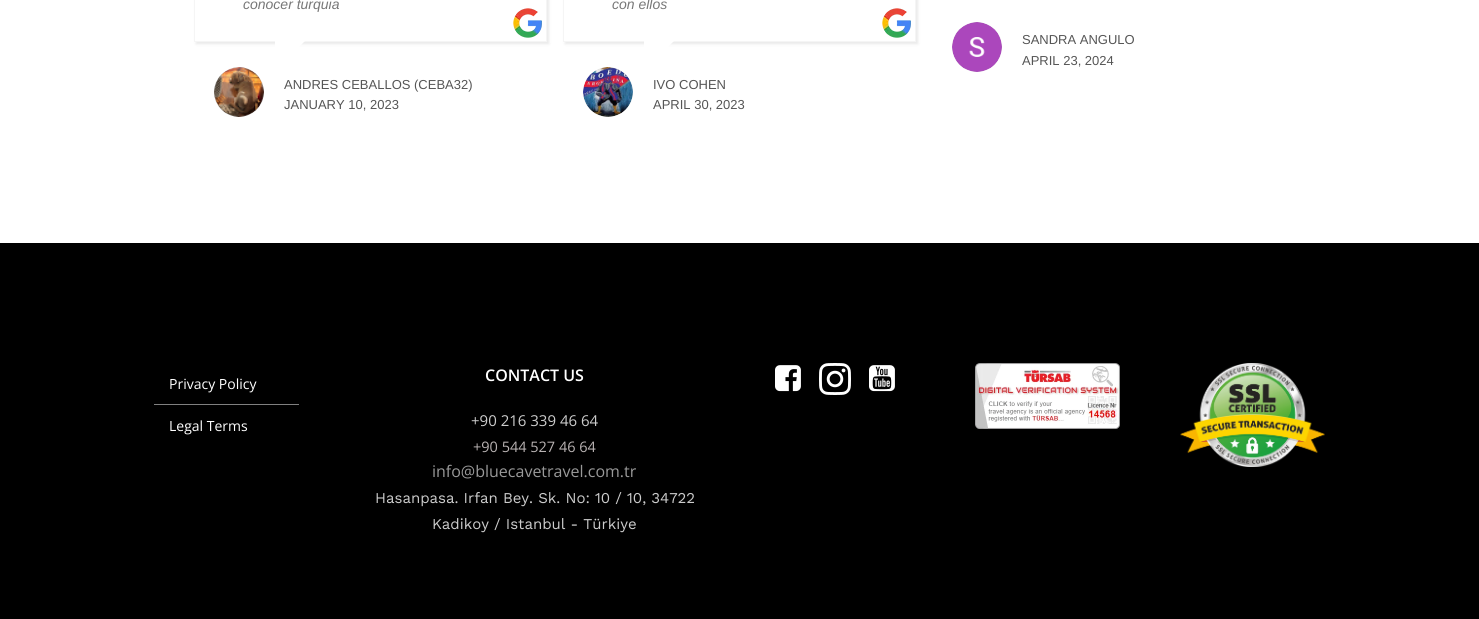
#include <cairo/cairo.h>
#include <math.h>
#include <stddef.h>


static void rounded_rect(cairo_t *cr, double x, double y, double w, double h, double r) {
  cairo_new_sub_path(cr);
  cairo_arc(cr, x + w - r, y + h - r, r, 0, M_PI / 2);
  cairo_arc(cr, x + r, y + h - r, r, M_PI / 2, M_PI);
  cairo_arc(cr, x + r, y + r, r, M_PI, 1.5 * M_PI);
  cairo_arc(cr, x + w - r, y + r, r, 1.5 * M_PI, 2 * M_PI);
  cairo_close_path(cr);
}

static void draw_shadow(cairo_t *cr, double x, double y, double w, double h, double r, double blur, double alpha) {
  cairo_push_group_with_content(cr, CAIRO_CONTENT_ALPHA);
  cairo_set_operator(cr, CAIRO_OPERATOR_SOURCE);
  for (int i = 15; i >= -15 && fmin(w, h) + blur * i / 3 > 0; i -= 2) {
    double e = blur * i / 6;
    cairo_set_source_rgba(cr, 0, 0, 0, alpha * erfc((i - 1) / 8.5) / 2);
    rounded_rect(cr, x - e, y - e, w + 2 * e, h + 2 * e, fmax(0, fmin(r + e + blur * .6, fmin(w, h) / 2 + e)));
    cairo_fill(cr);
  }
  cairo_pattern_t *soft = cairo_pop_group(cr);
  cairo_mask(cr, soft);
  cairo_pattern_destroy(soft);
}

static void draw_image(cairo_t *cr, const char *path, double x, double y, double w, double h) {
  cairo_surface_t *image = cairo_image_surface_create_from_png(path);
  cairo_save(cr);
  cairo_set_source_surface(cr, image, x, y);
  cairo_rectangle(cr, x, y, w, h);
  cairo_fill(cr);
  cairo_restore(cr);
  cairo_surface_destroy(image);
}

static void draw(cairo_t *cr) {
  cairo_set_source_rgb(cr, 1, 1, 1);
  cairo_paint(cr);
  cairo_save(cr);
  cairo_set_fill_rule(cr, CAIRO_FILL_RULE_EVEN_ODD);
  cairo_new_path(cr);
  cairo_move_to(cr, 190, 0);
  cairo_line_to(cr, 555, 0);
  cairo_line_to(cr, 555, 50);
  cairo_line_to(cr, 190, 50);
  cairo_close_path(cr);
  cairo_move_to(cr, 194, -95);
  cairo_line_to(cr, 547, -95);
  cairo_line_to(cr, 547, 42);
  cairo_line_to(cr, 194, 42);
  cairo_close_path(cr);
  cairo_clip(cr);
  cairo_set_source_rgb(cr, 0, 0, 0);
  draw_shadow(cr, 196, -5, 353, 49, 0, 1.5, 0.09);
  cairo_restore(cr);
  cairo_rectangle(cr, 194.5, -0.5, 352, 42);
  cairo_set_source_rgb(cr, 245 / 255.0, 245 / 255.0, 245 / 255.0);
  cairo_set_line_width(cr, 1);
  cairo_stroke(cr);
  draw_image(cr, "images/1.png", 513, 8, 29, 30);
  cairo_set_source_rgb(cr, 1, 1, 1);
  cairo_new_path(cr);
  cairo_move_to(cr, 275, 41);
  cairo_line_to(cr, 305, 41);
  cairo_line_to(cr, 275, 71);
  cairo_close_path(cr);
  cairo_fill(cr);
  draw_image(cr, "images/2.png", 214, 67, 50, 50);
  cairo_save(cr);
  cairo_set_fill_rule(cr, CAIRO_FILL_RULE_EVEN_ODD);
  cairo_new_path(cr);
  cairo_move_to(cr, 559, 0);
  cairo_line_to(cr, 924, 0);
  cairo_line_to(cr, 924, 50);
  cairo_line_to(cr, 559, 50);
  cairo_close_path(cr);
  cairo_move_to(cr, 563, -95);
  cairo_line_to(cr, 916, -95);
  cairo_line_to(cr, 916, 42);
  cairo_line_to(cr, 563, 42);
  cairo_close_path(cr);
  cairo_clip(cr);
  cairo_set_source_rgb(cr, 0, 0, 0);
  draw_shadow(cr, 565, -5, 353, 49, 0, 1.5, 0.09);
  cairo_restore(cr);
  cairo_rectangle(cr, 563.5, -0.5, 352, 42);
  cairo_set_source_rgb(cr, 245 / 255.0, 245 / 255.0, 245 / 255.0);
  cairo_stroke(cr);
  draw_image(cr, "images/1.png", 882, 8, 29, 30);
  cairo_set_source_rgb(cr, 1, 1, 1);
  cairo_new_path(cr);
  cairo_move_to(cr, 644, 41);
  cairo_line_to(cr, 674, 41);
  cairo_line_to(cr, 644, 71);
  cairo_close_path(cr);
  cairo_fill(cr);
  draw_image(cr, "images/3.png", 583, 67, 50, 50);
  draw_image(cr, "images/4.png", 952, 22, 50, 50);
  cairo_set_source_rgb(cr, 0, 0, 0);
  cairo_rectangle(cr, 0, 243, 1479, 376);
  cairo_fill(cr);
  cairo_set_source_rgb(cr, 128 / 255.0, 128 / 255.0, 128 / 255.0);
  cairo_rectangle(cr, 154, 404, 145, 1);
  cairo_fill(cr);
  draw_image(cr, "images/5.png", 775, 365, 26, 27);
  draw_image(cr, "images/6.png", 819, 363, 32, 32);
  draw_image(cr, "images/7.png", 869, 365, 26, 27);
  draw_image(cr, "images/8.png", 975, 363, 145, 66);
  draw_image(cr, "images/9.png", 1180, 363, 145, 104);
  cairo_select_font_face(cr, "Liberation Sans", CAIRO_FONT_SLANT_ITALIC, CAIRO_FONT_WEIGHT_NORMAL);
  cairo_set_font_size(cr, 14);
  cairo_set_source_rgb(cr, 119 / 255.0, 119 / 255.0, 119 / 255.0);
  cairo_move_to(cr, 243, 9);
  cairo_show_text(cr, "conocer turquia");
  cairo_select_font_face(cr, "Liberation Sans", CAIRO_FONT_SLANT_NORMAL, CAIRO_FONT_WEIGHT_NORMAL);
  cairo_set_font_size(cr, 13);
  cairo_set_source_rgb(cr, 85 / 255.0, 85 / 255.0, 85 / 255.0);
  cairo_move_to(cr, 284, 89);
  cairo_show_text(cr, "ANDRES CEBALLOS (CEBA32)");
  cairo_move_to(cr, 284, 109);
  cairo_show_text(cr, "JANUARY 10, 2023");
  cairo_select_font_face(cr, "Liberation Sans", CAIRO_FONT_SLANT_ITALIC, CAIRO_FONT_WEIGHT_NORMAL);
  cairo_set_font_size(cr, 14);
  cairo_set_source_rgb(cr, 119 / 255.0, 119 / 255.0, 119 / 255.0);
  cairo_move_to(cr, 612, 9);
  cairo_show_text(cr, "con ellos");
  cairo_select_font_face(cr, "Liberation Sans", CAIRO_FONT_SLANT_NORMAL, CAIRO_FONT_WEIGHT_NORMAL);
  cairo_set_font_size(cr, 13);
  cairo_set_source_rgb(cr, 85 / 255.0, 85 / 255.0, 85 / 255.0);
  cairo_move_to(cr, 653, 89);
  cairo_show_text(cr, "IVO COHEN");
  cairo_move_to(cr, 653, 109);
  cairo_show_text(cr, "APRIL 30, 2023");
  cairo_move_to(cr, 1022, 44);
  cairo_show_text(cr, "SANDRA ANGULO");
  cairo_move_to(cr, 1022, 65);
  cairo_show_text(cr, "APRIL 23, 2024");
  cairo_select_font_face(cr, "Open Sans", CAIRO_FONT_SLANT_NORMAL, CAIRO_FONT_WEIGHT_NORMAL);
  cairo_set_font_size(cr, 14);
  cairo_set_source_rgb(cr, 1, 1, 1);
  cairo_move_to(cr, 169, 389);
  cairo_show_text(cr, "Privacy Policy");
  cairo_move_to(cr, 169, 431);
  cairo_show_text(cr, "Legal Terms");
  cairo_select_font_face(cr, "Open Sans SemiBold", CAIRO_FONT_SLANT_NORMAL, CAIRO_FONT_WEIGHT_NORMAL);
  cairo_set_font_size(cr, 16);
  cairo_move_to(cr, 485, 381);
  cairo_show_text(cr, "CONTACT US");
  cairo_select_font_face(cr, "Open Sans", CAIRO_FONT_SLANT_NORMAL, CAIRO_FONT_WEIGHT_NORMAL);
  cairo_set_font_size(cr, 15);
  cairo_set_source_rgb(cr, 204 / 255.0, 204 / 255.0, 204 / 255.0);
  cairo_move_to(cr, 471, 426);
  cairo_show_text(cr, "+90 216 339 46 64");
  cairo_set_font_size(cr, 14.5);
  cairo_set_source_rgb(cr, 184 / 255.0, 178 / 255.0, 178 / 255.0);
  cairo_move_to(cr, 473, 452);
  cairo_show_text(cr, "+90 544 527 46 64");
  cairo_set_font_size(cr, 16);
  cairo_set_source_rgb(cr, 153 / 255.0, 153 / 255.0, 153 / 255.0);
  cairo_move_to(cr, 432, 477);
  cairo_show_text(cr, "info@bluecavetravel.com.tr");
  cairo_select_font_face(cr, "Work Sans", CAIRO_FONT_SLANT_NORMAL, CAIRO_FONT_WEIGHT_NORMAL);
  cairo_set_font_size(cr, 15);
  cairo_set_source_rgb(cr, 204 / 255.0, 204 / 255.0, 204 / 255.0);
  cairo_move_to(cr, 375, 503);
  cairo_show_text(cr, "Hasanpasa. Irfan Bey. Sk. No: 10 / 10, 34722");
  cairo_move_to(cr, 432, 529);
  cairo_show_text(cr, "Kadikoy / Istanbul - Türkiye");
}

int main(void) {
  cairo_surface_t *surface = cairo_image_surface_create(CAIRO_FORMAT_RGB24, 1479, 619);
  cairo_t *cr = cairo_create(surface);
  cairo_font_options_t *options = cairo_font_options_create();
  cairo_font_options_set_hint_metrics(options, CAIRO_HINT_METRICS_OFF);
  cairo_font_options_set_hint_style(options, CAIRO_HINT_STYLE_NONE);
  cairo_set_font_options(cr, options);
  cairo_set_miter_limit(cr, 4);
  draw(cr);
  cairo_surface_write_to_png(surface, "out.png");
  cairo_font_options_destroy(options);
  cairo_destroy(cr);
  cairo_surface_destroy(surface);
  return 0;
}
